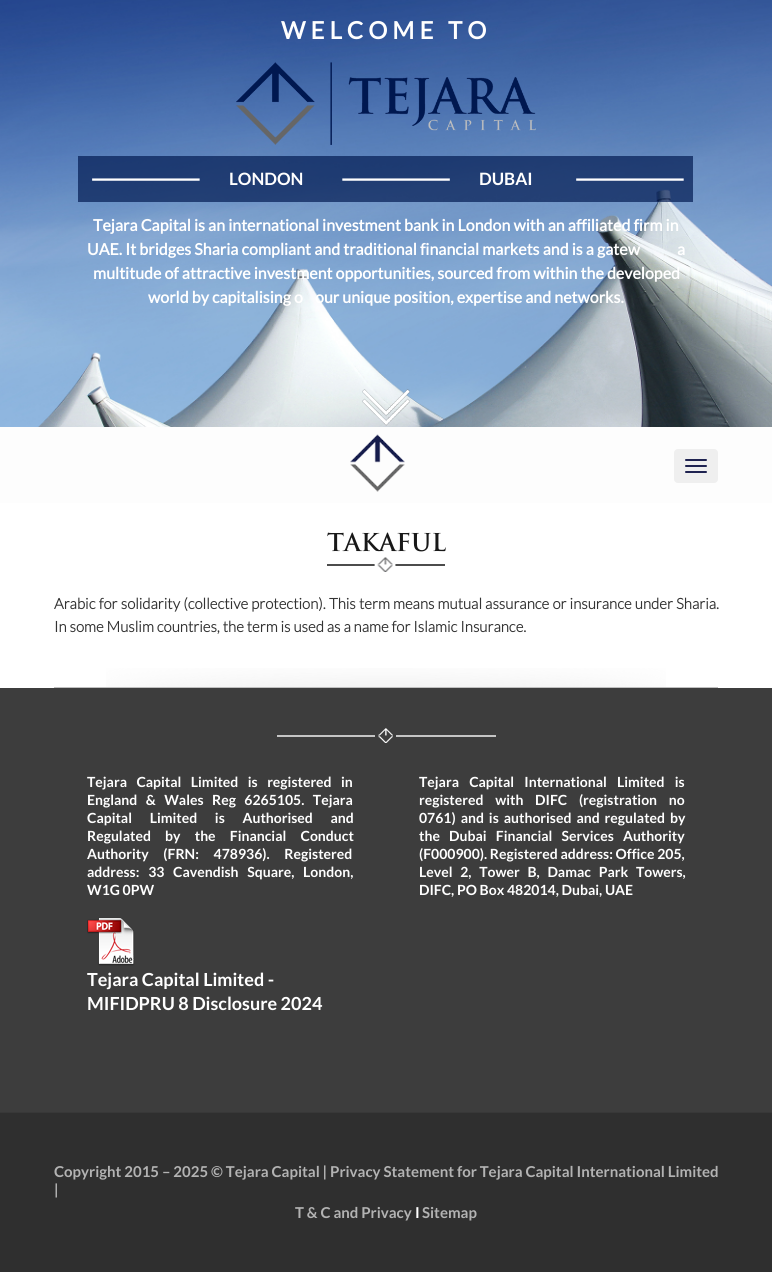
#include <cairo/cairo.h>
#include <math.h>
#include <stddef.h>


static void draw_spaced(cairo_t *cr, double x, double y, const char *s, double letter, double word) {
  cairo_move_to(cr, x, y);
  while (*s) {
    char ch[5] = {0};
    int n = 0;
    do ch[n++] = *s++; while ((*s & 0xC0) == 0x80);
    cairo_show_text(cr, ch);
    cairo_rel_move_to(cr, letter + word * (*ch == ' '), 0);
  }
}

static void rounded_rect(cairo_t *cr, double x, double y, double w, double h, double r) {
  cairo_new_sub_path(cr);
  cairo_arc(cr, x + w - r, y + h - r, r, 0, M_PI / 2);
  cairo_arc(cr, x + r, y + h - r, r, M_PI / 2, M_PI);
  cairo_arc(cr, x + r, y + r, r, M_PI, 1.5 * M_PI);
  cairo_arc(cr, x + w - r, y + r, r, 1.5 * M_PI, 2 * M_PI);
  cairo_close_path(cr);
}

static void draw_image(cairo_t *cr, const char *path, double x, double y, double w, double h) {
  cairo_surface_t *image = cairo_image_surface_create_from_png(path);
  cairo_save(cr);
  cairo_set_source_surface(cr, image, x, y);
  cairo_rectangle(cr, x, y, w, h);
  cairo_fill(cr);
  cairo_restore(cr);
  cairo_surface_destroy(image);
}

static void draw(cairo_t *cr) {
  cairo_set_source_rgb(cr, 61 / 255.0, 61 / 255.0, 61 / 255.0);
  cairo_paint(cr);
  draw_image(cr, "images/1.png", 0, 0, 772, 427);
  draw_image(cr, "images/2.png", 236, 62, 300, 83);
  draw_image(cr, "images/3.png", 78, 156, 615, 46);
  draw_image(cr, "images/4.png", 362, 389, 48, 37);
  cairo_set_source_rgb(cr, 253 / 255.0, 253 / 255.0, 253 / 255.0);
  cairo_rectangle(cr, 0, 427, 772, 76);
  cairo_fill(cr);
  draw_image(cr, "images/5.png", 350, 434, 55, 58);
  cairo_set_source_rgb(cr, 239 / 255.0, 239 / 255.0, 239 / 255.0);
  rounded_rect(cr, 674, 449, 44, 34, 4);
  cairo_fill(cr);
  cairo_set_source_rgb(cr, 31 / 255.0, 35 / 255.0, 81 / 255.0);
  rounded_rect(cr, 685, 459, 22, 2, 1);
  cairo_fill(cr);
  rounded_rect(cr, 685, 465, 22, 2, 1);
  cairo_fill(cr);
  rounded_rect(cr, 685, 471, 22, 2, 1);
  cairo_fill(cr);
  cairo_set_source_rgb(cr, 1, 1, 1);
  cairo_rectangle(cr, 0, 503, 772, 185);
  cairo_fill(cr);
  draw_image(cr, "images/6.png", 106, 668, 560, 19);
  cairo_set_source_rgb(cr, 191 / 255.0, 191 / 255.0, 191 / 255.0);
  cairo_rectangle(cr, 54, 687, 664, 1);
  cairo_fill(cr);
  draw_image(cr, "images/7.png", 327, 557, 118, 15);
  draw_image(cr, "images/8.png", 277, 728, 219, 15);
  draw_image(cr, "images/9.png", 87, 917, 48, 49);
  cairo_set_source_rgb(cr, 47 / 255.0, 47 / 255.0, 47 / 255.0);
  cairo_rectangle(cr, 0, 1113, 772, 159);
  cairo_fill(cr);
  cairo_set_source_rgb(cr, 56 / 255.0, 56 / 255.0, 56 / 255.0);
  cairo_rectangle(cr, 0, 1112, 772, 1);
  cairo_fill(cr);
  cairo_select_font_face(cr, "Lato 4", CAIRO_FONT_SLANT_NORMAL, CAIRO_FONT_WEIGHT_BOLD);
  cairo_set_font_size(cr, 24);
  cairo_set_source_rgb(cr, 1, 1, 1);
  draw_spaced(cr, 281, 39, "WELCOME TO", 5, 0);
  cairo_select_font_face(cr, "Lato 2", CAIRO_FONT_SLANT_NORMAL, CAIRO_FONT_WEIGHT_BOLD);
  cairo_set_font_size(cr, 17);
  cairo_move_to(cr, 229, 185);
  cairo_show_text(cr, "LONDON");
  cairo_move_to(cr, 479, 185);
  cairo_show_text(cr, "DUBAI");
  cairo_select_font_face(cr, "Lato 4", CAIRO_FONT_SLANT_NORMAL, CAIRO_FONT_WEIGHT_BOLD);
  cairo_set_font_size(cr, 16);
  cairo_move_to(cr, 93, 231);
  cairo_show_text(cr, "Tejara Capital is an international investment bank in London with an affiliated firm in");
  cairo_move_to(cr, 87, 255);
  cairo_show_text(cr, "UAE. It bridges Sharia compliant and traditional financial markets and is a gatew");
  cairo_move_to(cr, 677, 255);
  cairo_show_text(cr, "a");
  cairo_move_to(cr, 93, 279);
  cairo_show_text(cr, "multitude of attractive investment opportunities, sourced from within the developed");
  cairo_move_to(cr, 148, 303);
  cairo_show_text(cr, "world by capitalising o");
  cairo_move_to(cr, 315, 303);
  cairo_show_text(cr, "our unique position, expertise and networks.");
  cairo_select_font_face(cr, "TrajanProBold", CAIRO_FONT_SLANT_NORMAL, CAIRO_FONT_WEIGHT_BOLD);
  cairo_set_font_size(cr, 24);
  cairo_set_source_rgb(cr, 24 / 255.0, 24 / 255.0, 24 / 255.0);
  cairo_move_to(cr, 327, 551);
  cairo_show_text(cr, "TAKAFUL");
  cairo_select_font_face(cr, "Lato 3", CAIRO_FONT_SLANT_NORMAL, CAIRO_FONT_WEIGHT_BOLD);
  cairo_set_font_size(cr, 15);
  cairo_set_source_rgb(cr, 51 / 255.0, 51 / 255.0, 51 / 255.0);
  draw_spaced(cr, 54, 609, "Arabic for solidarity (collective protection). This term means mutual assurance or insurance under Sharia.", 0, 0.25);
  cairo_move_to(cr, 54, 632);
  cairo_show_text(cr, "In some Muslim countries, the term is used as a name for Islamic Insurance.");
  cairo_select_font_face(cr, "Lato", CAIRO_FONT_SLANT_NORMAL, CAIRO_FONT_WEIGHT_BOLD);
  cairo_set_font_size(cr, 14);
  cairo_set_source_rgb(cr, 1, 1, 1);
  draw_spaced(cr, 87, 787, "Tejara Capital Limited is registered in", 0, 6.75);
  draw_spaced(cr, 87, 805, "England & Wales Reg 6265105. Tejara", 0, 5.75);
  draw_spaced(cr, 87, 823, "Capital Limited is Authorised and", 0, 15);
  draw_spaced(cr, 87, 841, "Regulated by the Financial Conduct", 0, 11.5);
  draw_spaced(cr, 87, 859, "Authority (FRN: 478936). Registered", 0, 12);
  draw_spaced(cr, 87, 877, "address: 33 Cavendish Square, London,", 0, 6);
  cairo_move_to(cr, 87, 895);
  cairo_show_text(cr, "W1G 0PW");
  cairo_select_font_face(cr, "Lato 2", CAIRO_FONT_SLANT_NORMAL, CAIRO_FONT_WEIGHT_BOLD);
  cairo_set_font_size(cr, 18);
  cairo_move_to(cr, 87, 986);
  cairo_show_text(cr, "Tejara Capital Limited -");
  cairo_move_to(cr, 87, 1010);
  cairo_show_text(cr, "MIFIDPRU 8 Disclosure 2024");
  cairo_select_font_face(cr, "Lato", CAIRO_FONT_SLANT_NORMAL, CAIRO_FONT_WEIGHT_BOLD);
  cairo_set_font_size(cr, 14);
  draw_spaced(cr, 419, 787, "Tejara Capital International Limited is", 0, 7.5);
  draw_spaced(cr, 419, 805, "registered with DIFC (registration no", 0, 9);
  draw_spaced(cr, 419, 823, "0761) and is authorised and regulated by", 0, 2.25);
  draw_spaced(cr, 419, 841, "the Dubai Financial Services Authority", 0, 6.5);
  cairo_move_to(cr, 419, 859);
  cairo_show_text(cr, "(F000900). Registered address: Office 205,");
  draw_spaced(cr, 419, 877, "Level 2, Tower B, Damac Park Towers,", 0, 5);
  cairo_move_to(cr, 419, 895);
  cairo_show_text(cr, "DIFC, PO Box 482014, Dubai, UAE");
  cairo_set_font_size(cr, 15);
  cairo_set_source_rgb(cr, 179 / 255.0, 179 / 255.0, 179 / 255.0);
  cairo_move_to(cr, 54, 1177);
  cairo_show_text(cr, "Copyright 2015 – 2025 © Tejara Capital | Privacy Statement for Tejara Capital International Limited");
  cairo_move_to(cr, 54, 1195);
  cairo_show_text(cr, "|");
  cairo_move_to(cr, 295, 1218);
  cairo_show_text(cr, "T & C and Privacy");
  cairo_set_source_rgb(cr, 1, 1, 1);
  cairo_move_to(cr, 415, 1218);
  cairo_show_text(cr, "I");
  cairo_set_source_rgb(cr, 179 / 255.0, 179 / 255.0, 179 / 255.0);
  cairo_move_to(cr, 422, 1218);
  cairo_show_text(cr, "Sitemap");
}

int main(void) {
  cairo_surface_t *surface = cairo_image_surface_create(CAIRO_FORMAT_RGB24, 772, 1272);
  cairo_t *cr = cairo_create(surface);
  cairo_font_options_t *options = cairo_font_options_create();
  cairo_font_options_set_hint_metrics(options, CAIRO_HINT_METRICS_OFF);
  cairo_font_options_set_hint_style(options, CAIRO_HINT_STYLE_NONE);
  cairo_set_font_options(cr, options);
  cairo_set_miter_limit(cr, 4);
  draw(cr);
  cairo_surface_write_to_png(surface, "out.png");
  cairo_font_options_destroy(options);
  cairo_destroy(cr);
  cairo_surface_destroy(surface);
  return 0;
}
